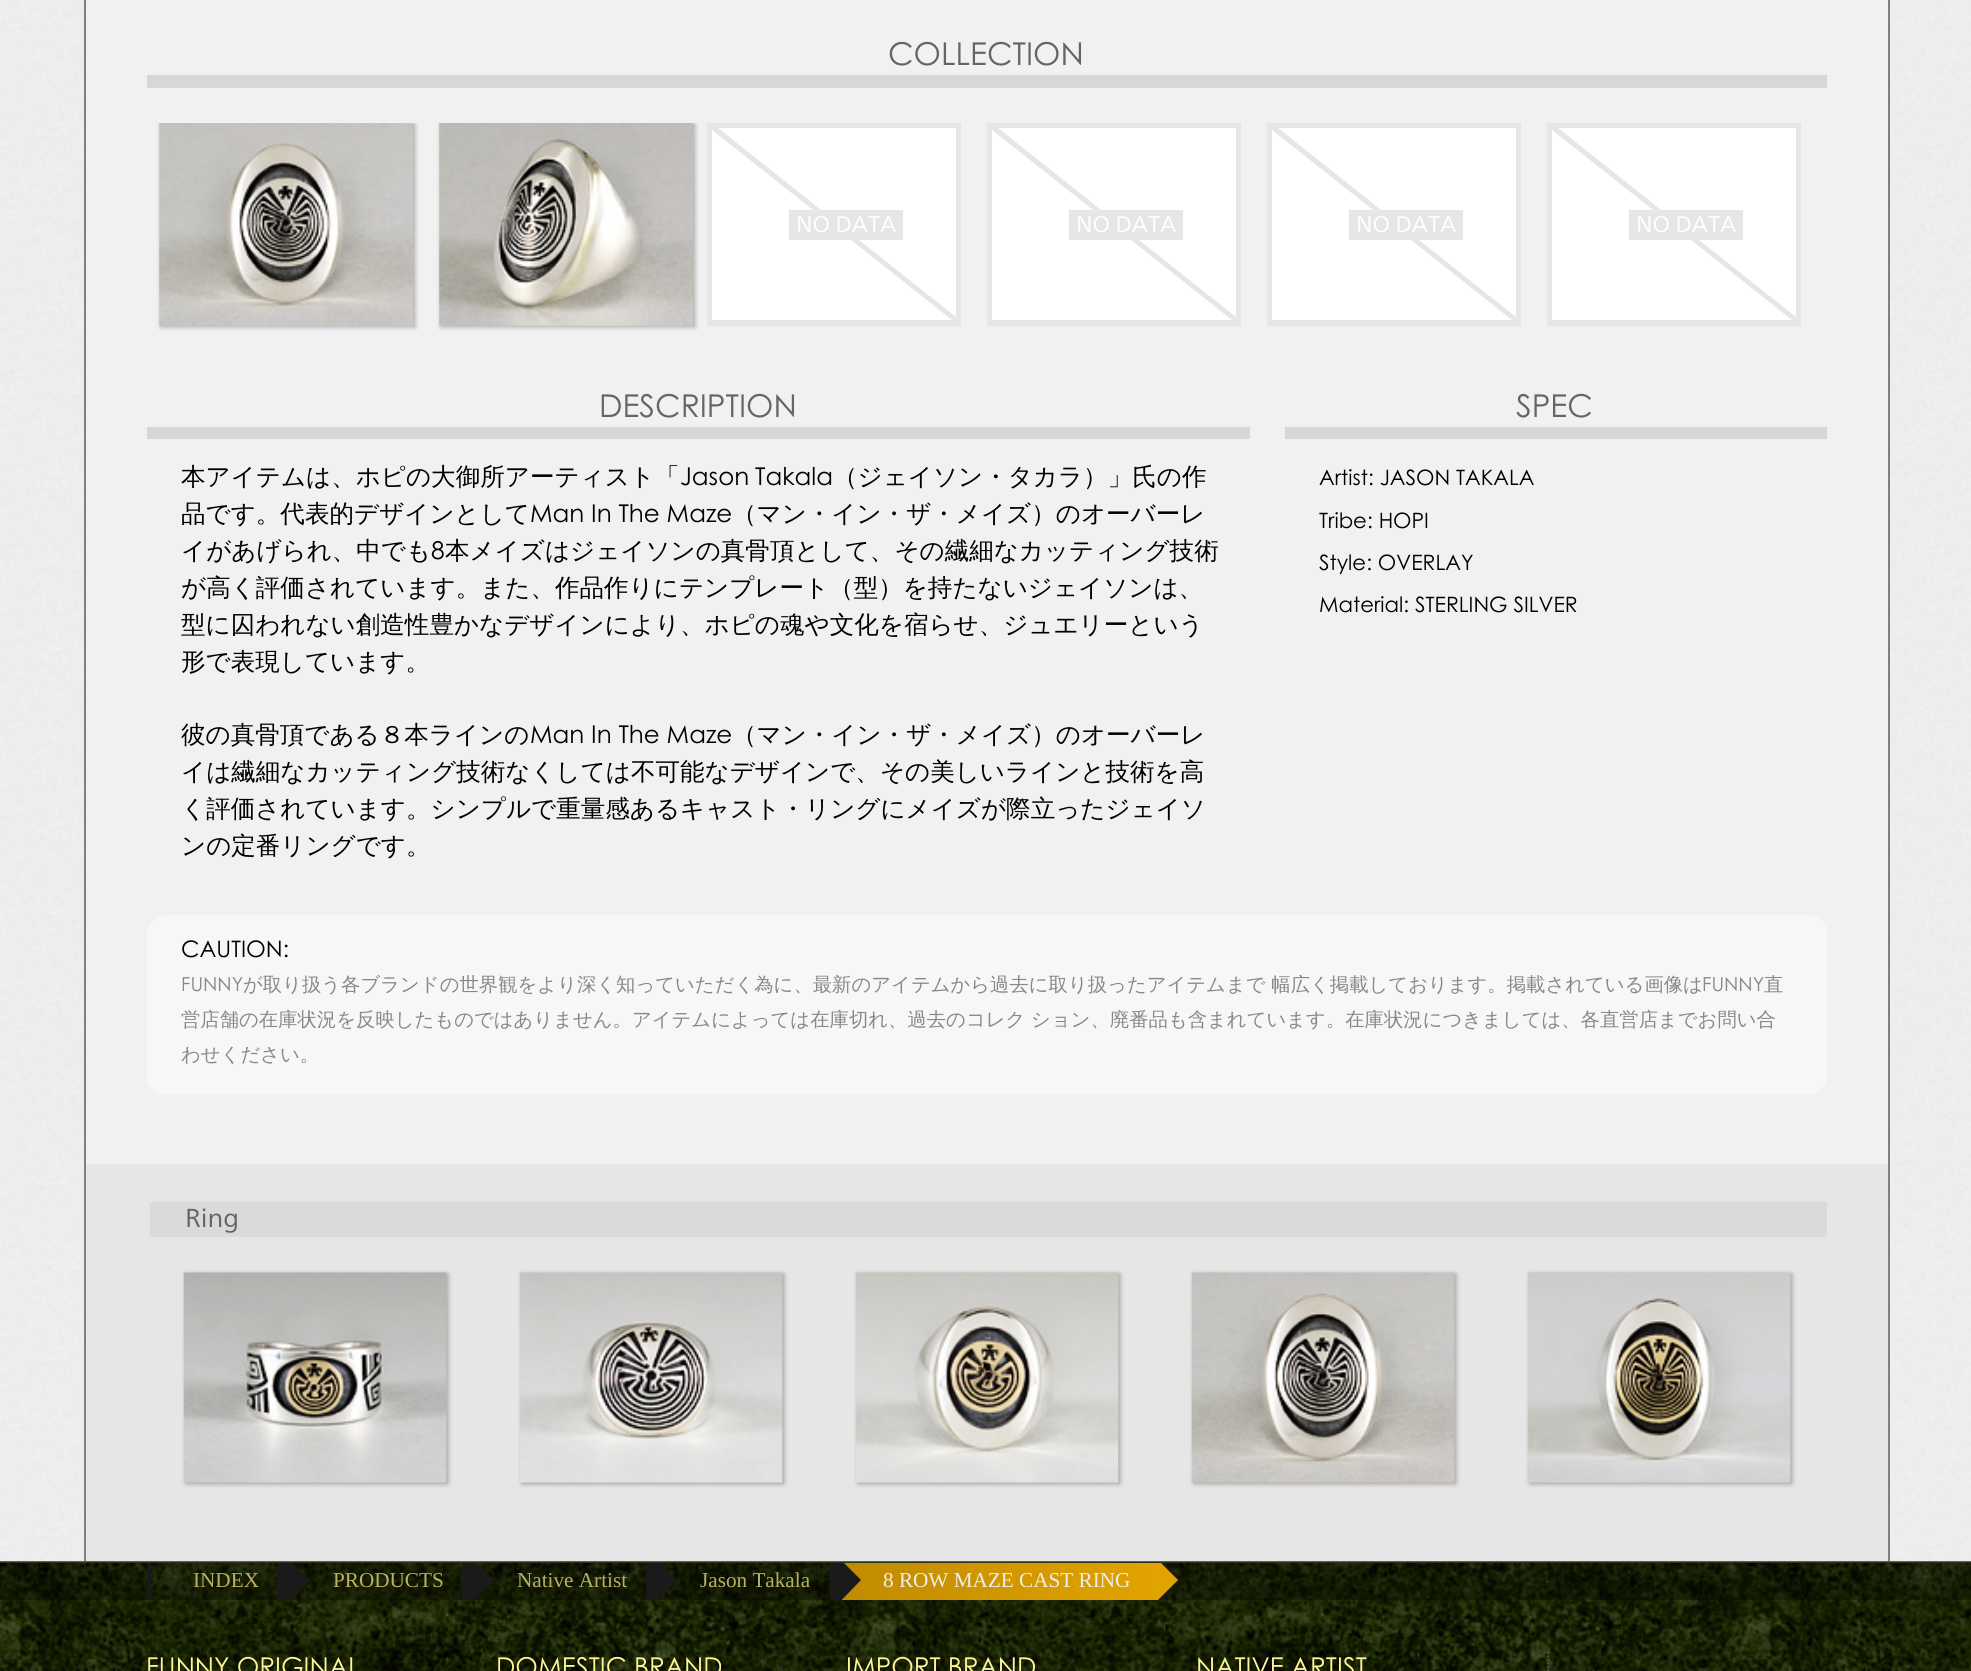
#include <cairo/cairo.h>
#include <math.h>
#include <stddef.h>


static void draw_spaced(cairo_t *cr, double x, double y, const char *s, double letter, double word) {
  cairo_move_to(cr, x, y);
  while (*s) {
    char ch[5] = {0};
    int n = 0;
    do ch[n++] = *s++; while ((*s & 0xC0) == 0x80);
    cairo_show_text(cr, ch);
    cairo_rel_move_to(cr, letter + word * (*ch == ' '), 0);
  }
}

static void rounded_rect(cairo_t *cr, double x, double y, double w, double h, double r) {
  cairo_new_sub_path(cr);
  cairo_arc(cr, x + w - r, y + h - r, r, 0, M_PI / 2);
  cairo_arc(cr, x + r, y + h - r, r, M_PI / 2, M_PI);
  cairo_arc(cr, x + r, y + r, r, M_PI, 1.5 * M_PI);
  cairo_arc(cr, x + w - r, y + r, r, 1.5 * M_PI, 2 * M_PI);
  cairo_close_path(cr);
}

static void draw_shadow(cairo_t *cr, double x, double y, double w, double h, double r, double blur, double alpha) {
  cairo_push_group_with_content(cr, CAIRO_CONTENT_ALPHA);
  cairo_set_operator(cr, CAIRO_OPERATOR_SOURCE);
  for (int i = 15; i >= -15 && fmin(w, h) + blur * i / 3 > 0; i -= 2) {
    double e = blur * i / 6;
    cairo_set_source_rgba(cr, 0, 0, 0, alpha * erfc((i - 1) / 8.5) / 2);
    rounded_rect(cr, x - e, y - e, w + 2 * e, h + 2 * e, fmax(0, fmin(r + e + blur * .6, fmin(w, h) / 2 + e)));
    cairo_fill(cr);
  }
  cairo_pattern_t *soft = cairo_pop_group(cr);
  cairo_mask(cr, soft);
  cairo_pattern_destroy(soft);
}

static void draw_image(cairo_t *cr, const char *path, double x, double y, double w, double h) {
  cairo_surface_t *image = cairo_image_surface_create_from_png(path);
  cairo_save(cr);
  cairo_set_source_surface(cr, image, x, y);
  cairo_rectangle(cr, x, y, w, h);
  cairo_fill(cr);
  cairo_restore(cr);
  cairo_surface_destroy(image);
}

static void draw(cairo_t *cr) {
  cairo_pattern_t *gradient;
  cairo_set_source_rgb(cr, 1, 1, 1);
  cairo_paint(cr);
  cairo_set_source_rgb(cr, 238 / 255.0, 238 / 255.0, 238 / 255.0);
  cairo_rectangle(cr, 0, 0, 1971, 1);
  cairo_fill(cr);
  cairo_set_source_rgb(cr, 43 / 255.0, 51 / 255.0, 29 / 255.0);
  cairo_rectangle(cr, 0, 1561, 1971, 2);
  cairo_fill(cr);
  draw_image(cr, "images/1.png", 0, 1, 1971, 1561);
  cairo_set_source_rgb(cr, 241 / 255.0, 241 / 255.0, 241 / 255.0);
  cairo_rectangle(cr, 86, 0, 1802, 1164);
  cairo_fill(cr);
  cairo_set_source_rgb(cr, 128 / 255.0, 128 / 255.0, 128 / 255.0);
  cairo_rectangle(cr, 1888, 0, 2, 1561);
  cairo_fill(cr);
  cairo_rectangle(cr, 84, 0, 2, 1561);
  cairo_fill(cr);
  cairo_set_source_rgb(cr, 215 / 255.0, 215 / 255.0, 215 / 255.0);
  cairo_rectangle(cr, 147, 75, 1680, 13);
  cairo_fill(cr);
  cairo_save(cr);
  cairo_rectangle(cr, 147, 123, 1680, 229);
  cairo_clip(cr);
  cairo_set_source_rgb(cr, 0, 0, 0);
  draw_shadow(cr, 161, 124, 254, 203, 0, 2.5, 0.3);
  cairo_restore(cr);
  draw_image(cr, "images/2.png", 159, 123, 254, 203);
  cairo_save(cr);
  cairo_rectangle(cr, 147, 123, 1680, 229);
  cairo_clip(cr);
  cairo_set_source_rgb(cr, 0, 0, 0);
  draw_shadow(cr, 441, 124, 254, 203, 0, 2.5, 0.3);
  cairo_restore(cr);
  draw_image(cr, "images/3.png", 439, 122, 254, 204);
  cairo_set_source_rgb(cr, 230 / 255.0, 230 / 255.0, 230 / 255.0);
  cairo_rectangle(cr, 707, 123, 254, 203);
  cairo_fill(cr);
  cairo_set_source_rgb(cr, 1, 1, 1);
  cairo_new_path(cr);
  cairo_move_to(cr, 718, 128);
  cairo_line_to(cr, 956, 128);
  cairo_line_to(cr, 956, 317);
  cairo_close_path(cr);
  cairo_fill(cr);
  cairo_new_path(cr);
  cairo_move_to(cr, 952, 320);
  cairo_line_to(cr, 712, 320);
  cairo_line_to(cr, 712, 130);
  cairo_close_path(cr);
  cairo_fill(cr);
  cairo_set_source_rgb(cr, 230 / 255.0, 230 / 255.0, 230 / 255.0);
  cairo_rectangle(cr, 789, 210, 114, 30);
  cairo_fill(cr);
  cairo_rectangle(cr, 987, 123, 254, 203);
  cairo_fill(cr);
  cairo_set_source_rgb(cr, 1, 1, 1);
  cairo_new_path(cr);
  cairo_move_to(cr, 998, 128);
  cairo_line_to(cr, 1236, 128);
  cairo_line_to(cr, 1236, 317);
  cairo_close_path(cr);
  cairo_fill(cr);
  cairo_new_path(cr);
  cairo_move_to(cr, 1232, 320);
  cairo_line_to(cr, 992, 320);
  cairo_line_to(cr, 992, 130);
  cairo_close_path(cr);
  cairo_fill(cr);
  cairo_set_source_rgb(cr, 230 / 255.0, 230 / 255.0, 230 / 255.0);
  cairo_rectangle(cr, 1069, 210, 114, 30);
  cairo_fill(cr);
  cairo_rectangle(cr, 1267, 123, 254, 203);
  cairo_fill(cr);
  cairo_set_source_rgb(cr, 1, 1, 1);
  cairo_new_path(cr);
  cairo_move_to(cr, 1278, 128);
  cairo_line_to(cr, 1516, 128);
  cairo_line_to(cr, 1516, 317);
  cairo_close_path(cr);
  cairo_fill(cr);
  cairo_new_path(cr);
  cairo_move_to(cr, 1512, 320);
  cairo_line_to(cr, 1272, 320);
  cairo_line_to(cr, 1272, 130);
  cairo_close_path(cr);
  cairo_fill(cr);
  cairo_set_source_rgb(cr, 230 / 255.0, 230 / 255.0, 230 / 255.0);
  cairo_rectangle(cr, 1349, 210, 114, 30);
  cairo_fill(cr);
  cairo_rectangle(cr, 1547, 123, 254, 203);
  cairo_fill(cr);
  cairo_set_source_rgb(cr, 1, 1, 1);
  cairo_new_path(cr);
  cairo_move_to(cr, 1558, 128);
  cairo_line_to(cr, 1796, 128);
  cairo_line_to(cr, 1796, 317);
  cairo_close_path(cr);
  cairo_fill(cr);
  cairo_new_path(cr);
  cairo_move_to(cr, 1792, 320);
  cairo_line_to(cr, 1552, 320);
  cairo_line_to(cr, 1552, 130);
  cairo_close_path(cr);
  cairo_fill(cr);
  cairo_set_source_rgb(cr, 230 / 255.0, 230 / 255.0, 230 / 255.0);
  cairo_rectangle(cr, 1629, 210, 114, 30);
  cairo_fill(cr);
  cairo_set_source_rgb(cr, 215 / 255.0, 215 / 255.0, 215 / 255.0);
  cairo_rectangle(cr, 147, 427, 1103, 12);
  cairo_fill(cr);
  cairo_rectangle(cr, 1285, 427, 542, 12);
  cairo_fill(cr);
  cairo_set_source_rgb(cr, 247 / 255.0, 247 / 255.0, 247 / 255.0);
  rounded_rect(cr, 147, 915, 1680, 179, 18);
  cairo_fill(cr);
  cairo_set_source_rgb(cr, 230 / 255.0, 230 / 255.0, 230 / 255.0);
  cairo_rectangle(cr, 86, 1164, 1802, 397);
  cairo_fill(cr);
  cairo_set_source_rgb(cr, 218 / 255.0, 218 / 255.0, 218 / 255.0);
  rounded_rect(cr, 147, 1199, 1680, 38, 2);
  cairo_fill(cr);
  cairo_set_source_rgb(cr, 229 / 255.0, 229 / 255.0, 229 / 255.0);
  cairo_new_path(cr);
  cairo_move_to(cr, 150, 1202);
  cairo_line_to(cr, 1827, 1202);
  cairo_line_to(cr, 1827, 1201);
  cairo_curve_to(cr, 1827, 1200, 1826, 1199, 1825, 1199);
  cairo_line_to(cr, 149, 1199);
  cairo_curve_to(cr, 148, 1199, 147, 1200, 147, 1201);
  cairo_line_to(cr, 147, 1235);
  cairo_curve_to(cr, 147, 1236, 148, 1237, 149, 1237);
  cairo_line_to(cr, 150, 1237);
  cairo_close_path(cr);
  cairo_fill(cr);
  cairo_set_source_rgb(cr, 0, 0, 0);
  draw_shadow(cr, 186, 1274, 262, 210, 0, 2.5, 0.3);
  draw_image(cr, "images/4.png", 183, 1272, 264, 211);
  draw_shadow(cr, 522, 1274, 262, 210, 0, 2.5, 0.3);
  draw_image(cr, "images/5.png", 519, 1272, 264, 211);
  draw_shadow(cr, 858, 1274, 262, 210, 0, 2.5, 0.3);
  draw_image(cr, "images/6.png", 855, 1272, 264, 211);
  draw_shadow(cr, 1194, 1274, 262, 210, 0, 2.5, 0.3);
  draw_image(cr, "images/7.png", 1191, 1272, 264, 211);
  draw_shadow(cr, 1530, 1274, 262, 210, 0, 2.5, 0.3);
  draw_image(cr, "images/8.png", 1527, 1272, 264, 211);
  draw_image(cr, "images/9.png", 0, 1563, 1971, 108);
  cairo_set_source_rgba(cr, 0, 0, 0, 0.3);
  cairo_rectangle(cr, 0, 1563, 1971, 37);
  cairo_fill(cr);
  cairo_set_source_rgb(cr, 26 / 255.0, 26 / 255.0, 26 / 255.0);
  cairo_rectangle(cr, 147, 1563, 4, 37);
  cairo_fill(cr);
  cairo_save(cr);
  cairo_rectangle(cr, 147, 1563, 1680, 37);
  cairo_clip(cr);
  cairo_new_path(cr);
  cairo_move_to(cr, 278, 1612);
  cairo_line_to(cr, 278, 1549);
  cairo_line_to(cr, 310, 1580);
  cairo_close_path(cr);
  cairo_fill(cr);
  cairo_new_path(cr);
  cairo_move_to(cr, 462, 1612);
  cairo_line_to(cr, 462, 1549);
  cairo_line_to(cr, 494, 1580);
  cairo_close_path(cr);
  cairo_fill(cr);
  cairo_new_path(cr);
  cairo_move_to(cr, 646, 1612);
  cairo_line_to(cr, 646, 1549);
  cairo_line_to(cr, 677, 1580);
  cairo_close_path(cr);
  cairo_fill(cr);
  cairo_restore(cr);
  gradient = cairo_pattern_create_linear(840, 1581, 1160, 1581);
  cairo_pattern_add_color_stop_rgba(gradient, 0, 192 / 255.0, 139 / 255.0, 0, 1);
  cairo_pattern_add_color_stop_rgba(gradient, 1, 225 / 255.0, 163 / 255.0, 0, 1);
  cairo_set_source(cr, gradient);
  cairo_pattern_destroy(gradient);
  cairo_rectangle(cr, 841, 1563, 309, 37);
  cairo_fill(cr);
  cairo_save(cr);
  cairo_rectangle(cr, 147, 1563, 1680, 37);
  cairo_clip(cr);
  cairo_set_source_rgb(cr, 26 / 255.0, 26 / 255.0, 26 / 255.0);
  cairo_new_path(cr);
  cairo_move_to(cr, 830, 1612);
  cairo_line_to(cr, 830, 1549);
  cairo_line_to(cr, 861, 1580);
  cairo_close_path(cr);
  cairo_fill(cr);
  cairo_new_path(cr);
  cairo_move_to(cr, 1150, 1612);
  cairo_line_to(cr, 1150, 1549);
  cairo_line_to(cr, 1181, 1580);
  cairo_close_path(cr);
  cairo_fill(cr);
  cairo_set_source_rgb(cr, 225 / 255.0, 163 / 255.0, 0);
  cairo_new_path(cr);
  cairo_move_to(cr, 1150, 1608);
  cairo_line_to(cr, 1150, 1552);
  cairo_line_to(cr, 1178, 1580);
  cairo_close_path(cr);
  cairo_fill(cr);
  cairo_restore(cr);
  cairo_new_path(cr);
  cairo_move_to(cr, 1548, 1652);
  cairo_line_to(cr, 1548, 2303);
  cairo_set_source_rgb(cr, 85 / 255.0, 85 / 255.0, 85 / 255.0);
  cairo_set_line_width(cr, 1.8);
  cairo_set_dash(cr, (double[]){1.75, 1.75}, 2, 0);
  cairo_stroke(cr);
  cairo_select_font_face(cr, "Century Gothic", CAIRO_FONT_SLANT_NORMAL, CAIRO_FONT_WEIGHT_NORMAL);
  cairo_set_font_size(cr, 31.5);
  cairo_set_source_rgb(cr, 101 / 255.0, 101 / 255.0, 101 / 255.0);
  cairo_move_to(cr, 888, 65);
  cairo_show_text(cr, "COLLECTION");
  cairo_select_font_face(cr, "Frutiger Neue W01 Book", CAIRO_FONT_SLANT_NORMAL, CAIRO_FONT_WEIGHT_NORMAL);
  cairo_set_font_size(cr, 22.75);
  cairo_set_source_rgb(cr, 1, 1, 1);
  cairo_move_to(cr, 796, 232);
  cairo_show_text(cr, "NO DATA");
  cairo_move_to(cr, 1076, 232);
  cairo_show_text(cr, "NO DATA");
  cairo_move_to(cr, 1356, 232);
  cairo_show_text(cr, "NO DATA");
  cairo_move_to(cr, 1636, 232);
  cairo_show_text(cr, "NO DATA");
  cairo_select_font_face(cr, "Century Gothic", CAIRO_FONT_SLANT_NORMAL, CAIRO_FONT_WEIGHT_NORMAL);
  cairo_set_font_size(cr, 31.5);
  cairo_set_source_rgb(cr, 101 / 255.0, 101 / 255.0, 101 / 255.0);
  cairo_move_to(cr, 599, 417);
  cairo_show_text(cr, "DESCRIPTION");
  cairo_select_font_face(cr, "WenQuanYi Zen Hei Medium", CAIRO_FONT_SLANT_NORMAL, CAIRO_FONT_WEIGHT_NORMAL);
  cairo_set_font_size(cr, 24.55);
  cairo_set_source_rgb(cr, 0, 0, 0);
  cairo_move_to(cr, 181, 485);
  cairo_show_text(cr, "本アイテムは、ホピの大御所アーティスト「");
  cairo_select_font_face(cr, "Century Gothic", CAIRO_FONT_SLANT_NORMAL, CAIRO_FONT_WEIGHT_NORMAL);
  draw_spaced(cr, 680, 485, "Jason Takala", 0, -1);
  cairo_select_font_face(cr, "WenQuanYi Zen Hei Medium", CAIRO_FONT_SLANT_NORMAL, CAIRO_FONT_WEIGHT_NORMAL);
  cairo_move_to(cr, 833, 485);
  cairo_show_text(cr, "（ジェイソン・タカラ）」氏の作");
  cairo_move_to(cr, 181, 522);
  cairo_show_text(cr, "品です。代表的デザインとして");
  cairo_select_font_face(cr, "Century Gothic", CAIRO_FONT_SLANT_NORMAL, CAIRO_FONT_WEIGHT_NORMAL);
  cairo_move_to(cr, 530, 522);
  cairo_show_text(cr, "Man In The Maze");
  cairo_select_font_face(cr, "WenQuanYi Zen Hei Medium", CAIRO_FONT_SLANT_NORMAL, CAIRO_FONT_WEIGHT_NORMAL);
  cairo_move_to(cr, 732, 522);
  cairo_show_text(cr, "（マン・イン・ザ・メイズ）のオーバーレ");
  cairo_move_to(cr, 181, 559);
  cairo_show_text(cr, "イがあげられ、中でも");
  cairo_select_font_face(cr, "Century Gothic", CAIRO_FONT_SLANT_NORMAL, CAIRO_FONT_WEIGHT_NORMAL);
  cairo_move_to(cr, 431, 559);
  cairo_show_text(cr, "8");
  cairo_select_font_face(cr, "WenQuanYi Zen Hei Medium", CAIRO_FONT_SLANT_NORMAL, CAIRO_FONT_WEIGHT_NORMAL);
  cairo_move_to(cr, 445, 559);
  cairo_show_text(cr, "本メイズはジェイソンの真骨頂として、その繊細なカッティング技術");
  cairo_move_to(cr, 181, 596);
  cairo_show_text(cr, "が高く評価されています。また、作品作りにテンプレート（型）を持たないジェイソンは、");
  cairo_move_to(cr, 181, 633);
  cairo_show_text(cr, "型に囚われない創造性豊かなデザインにより、ホピの魂や文化を宿らせ、ジュエリーという");
  cairo_move_to(cr, 181, 670);
  cairo_show_text(cr, "形で表現しています。");
  cairo_move_to(cr, 181, 743);
  cairo_show_text(cr, "彼の真骨頂である８本ラインの");
  cairo_select_font_face(cr, "Century Gothic", CAIRO_FONT_SLANT_NORMAL, CAIRO_FONT_WEIGHT_NORMAL);
  cairo_move_to(cr, 530, 743);
  cairo_show_text(cr, "Man In The Maze");
  cairo_select_font_face(cr, "WenQuanYi Zen Hei Medium", CAIRO_FONT_SLANT_NORMAL, CAIRO_FONT_WEIGHT_NORMAL);
  cairo_move_to(cr, 732, 743);
  cairo_show_text(cr, "（マン・イン・ザ・メイズ）のオーバーレ");
  cairo_move_to(cr, 181, 780);
  cairo_show_text(cr, "イは繊細なカッティング技術なくしては不可能なデザインで、その美しいラインと技術を高");
  cairo_move_to(cr, 181, 817);
  cairo_show_text(cr, "く評価されています。シンプルで重量感あるキャスト・リングにメイズが際立ったジェイソ");
  cairo_move_to(cr, 181, 854);
  cairo_show_text(cr, "ンの定番リングです。");
  cairo_select_font_face(cr, "Century Gothic", CAIRO_FONT_SLANT_NORMAL, CAIRO_FONT_WEIGHT_NORMAL);
  cairo_set_font_size(cr, 31.5);
  cairo_set_source_rgb(cr, 101 / 255.0, 101 / 255.0, 101 / 255.0);
  cairo_move_to(cr, 1516, 417);
  cairo_show_text(cr, "SPEC");
  cairo_set_font_size(cr, 21.2);
  cairo_set_source_rgb(cr, 0, 0, 0);
  cairo_move_to(cr, 1319, 485);
  cairo_show_text(cr, "Artist: JASON TAKALA");
  cairo_move_to(cr, 1319, 528);
  cairo_show_text(cr, "Tribe: HOPI");
  cairo_move_to(cr, 1319, 570);
  cairo_show_text(cr, "Style: OVERLAY");
  cairo_move_to(cr, 1319, 612);
  cairo_show_text(cr, "Material: STERLING SILVER");
  cairo_set_font_size(cr, 22.75);
  cairo_move_to(cr, 181, 957);
  cairo_show_text(cr, "CAUTION:");
  cairo_set_font_size(cr, 19.35);
  cairo_set_source_rgb(cr, 136 / 255.0, 136 / 255.0, 136 / 255.0);
  cairo_move_to(cr, 181, 991);
  cairo_show_text(cr, "FUNNY");
  cairo_select_font_face(cr, "WenQuanYi Zen Hei Medium", CAIRO_FONT_SLANT_NORMAL, CAIRO_FONT_WEIGHT_NORMAL);
  cairo_move_to(cr, 243, 991);
  cairo_show_text(cr, "が取り扱う各ブランドの世界観をより深く知っていただく為に、最新のアイテムから過去に取り扱ったアイテムまで 幅広く掲載しております。掲載されている画像は");
  cairo_select_font_face(cr, "Century Gothic", CAIRO_FONT_SLANT_NORMAL, CAIRO_FONT_WEIGHT_NORMAL);
  cairo_move_to(cr, 1702, 991);
  cairo_show_text(cr, "FUNNY");
  cairo_select_font_face(cr, "WenQuanYi Zen Hei Medium", CAIRO_FONT_SLANT_NORMAL, CAIRO_FONT_WEIGHT_NORMAL);
  cairo_move_to(cr, 1764, 991);
  cairo_show_text(cr, "直");
  cairo_move_to(cr, 181, 1026);
  cairo_show_text(cr, "営店舗の在庫状況を反映したものではありません。アイテムによっては在庫切れ、過去のコレク ション、廃番品も含まれています。在庫状況につきましては、各直営店までお問い合");
  cairo_move_to(cr, 181, 1061);
  cairo_show_text(cr, "わせください。");
  cairo_select_font_face(cr, "Frutiger Neue W01 Book", CAIRO_FONT_SLANT_NORMAL, CAIRO_FONT_WEIGHT_NORMAL);
  cairo_set_font_size(cr, 26);
  cairo_set_source_rgb(cr, 101 / 255.0, 101 / 255.0, 101 / 255.0);
  cairo_move_to(cr, 185, 1227);
  cairo_show_text(cr, "Ring");
  cairo_select_font_face(cr, "Liberation Serif", CAIRO_FONT_SLANT_NORMAL, CAIRO_FONT_WEIGHT_NORMAL);
  cairo_set_font_size(cr, 21.2);
  cairo_set_source_rgb(cr, 185 / 255.0, 177 / 255.0, 98 / 255.0);
  cairo_move_to(cr, 193, 1587);
  cairo_show_text(cr, "INDEX");
  cairo_move_to(cr, 333, 1587);
  cairo_show_text(cr, "PRODUCTS");
  cairo_move_to(cr, 517, 1587);
  cairo_show_text(cr, "Native Artist");
  cairo_move_to(cr, 700, 1587);
  cairo_show_text(cr, "Jason Takala");
  cairo_set_source_rgb(cr, 238 / 255.0, 238 / 255.0, 238 / 255.0);
  cairo_move_to(cr, 883, 1587);
  cairo_show_text(cr, "8 ROW MAZE CAST RING");
  cairo_select_font_face(cr, "Century Gothic", CAIRO_FONT_SLANT_NORMAL, CAIRO_FONT_WEIGHT_NORMAL);
  cairo_set_font_size(cr, 26);
  cairo_set_source_rgb(cr, 254 / 255.0, 245 / 255.0, 154 / 255.0);
  cairo_move_to(cr, 146, 1676);
  cairo_show_text(cr, "FUNNY ORIGINAL");
  cairo_move_to(cr, 496, 1676);
  cairo_show_text(cr, "DOMESTIC BRAND");
  cairo_move_to(cr, 846, 1676);
  cairo_show_text(cr, "IMPORT BRAND");
  cairo_move_to(cr, 1196, 1676);
  cairo_show_text(cr, "NATIVE ARTIST");
}

int main(void) {
  cairo_surface_t *surface = cairo_image_surface_create(CAIRO_FORMAT_RGB24, 1971, 1671);
  cairo_t *cr = cairo_create(surface);
  cairo_font_options_t *options = cairo_font_options_create();
  cairo_font_options_set_hint_metrics(options, CAIRO_HINT_METRICS_OFF);
  cairo_font_options_set_hint_style(options, CAIRO_HINT_STYLE_NONE);
  cairo_set_font_options(cr, options);
  cairo_set_miter_limit(cr, 4);
  draw(cr);
  cairo_surface_write_to_png(surface, "out.png");
  cairo_font_options_destroy(options);
  cairo_destroy(cr);
  cairo_surface_destroy(surface);
  return 0;
}
